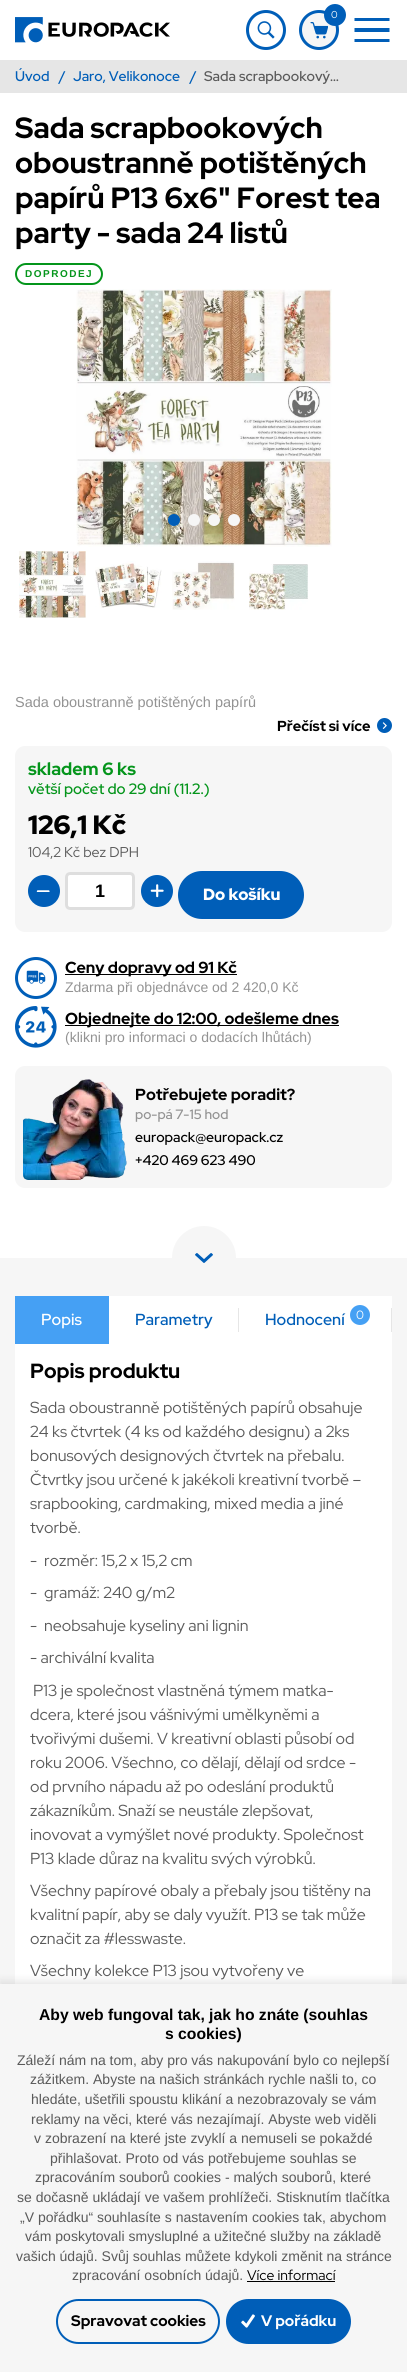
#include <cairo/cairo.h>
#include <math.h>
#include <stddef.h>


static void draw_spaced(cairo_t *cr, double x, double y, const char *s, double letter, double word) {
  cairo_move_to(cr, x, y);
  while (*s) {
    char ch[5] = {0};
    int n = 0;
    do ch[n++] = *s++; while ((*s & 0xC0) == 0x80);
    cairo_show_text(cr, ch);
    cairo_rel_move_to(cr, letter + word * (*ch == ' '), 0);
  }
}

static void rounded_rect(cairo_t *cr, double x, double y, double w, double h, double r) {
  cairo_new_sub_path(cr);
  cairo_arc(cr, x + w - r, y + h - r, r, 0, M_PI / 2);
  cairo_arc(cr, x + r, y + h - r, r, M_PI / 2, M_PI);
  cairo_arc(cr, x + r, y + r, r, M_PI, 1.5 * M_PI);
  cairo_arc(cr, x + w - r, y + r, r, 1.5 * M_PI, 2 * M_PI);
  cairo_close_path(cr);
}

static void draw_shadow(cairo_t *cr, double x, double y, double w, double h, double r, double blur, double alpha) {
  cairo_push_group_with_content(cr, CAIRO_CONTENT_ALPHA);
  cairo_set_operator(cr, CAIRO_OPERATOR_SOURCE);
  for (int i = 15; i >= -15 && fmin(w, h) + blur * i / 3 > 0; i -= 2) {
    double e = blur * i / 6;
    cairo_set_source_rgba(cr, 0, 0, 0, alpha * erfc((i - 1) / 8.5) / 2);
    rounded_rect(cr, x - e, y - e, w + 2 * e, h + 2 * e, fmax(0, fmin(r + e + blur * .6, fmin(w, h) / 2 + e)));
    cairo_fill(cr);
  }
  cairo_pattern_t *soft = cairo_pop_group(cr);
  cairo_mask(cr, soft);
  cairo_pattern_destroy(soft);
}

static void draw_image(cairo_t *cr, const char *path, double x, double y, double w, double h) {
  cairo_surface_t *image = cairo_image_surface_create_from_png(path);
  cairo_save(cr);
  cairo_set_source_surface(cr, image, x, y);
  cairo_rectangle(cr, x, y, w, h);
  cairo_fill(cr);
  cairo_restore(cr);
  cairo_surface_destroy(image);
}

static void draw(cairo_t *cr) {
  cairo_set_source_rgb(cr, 1, 1, 1);
  cairo_paint(cr);
  draw_image(cr, "images/1.png", 257, 21, 18, 18);
  cairo_arc(cr, 266, 30, 18.5, 0, 2 * M_PI);
  cairo_set_source_rgb(cr, 0, 94 / 255.0, 184 / 255.0);
  cairo_set_line_width(cr, 3);
  cairo_stroke(cr);
  cairo_set_source_rgb(cr, 246 / 255.0, 246 / 255.0, 246 / 255.0);
  cairo_arc(cr, 319, 30, 18.5, 0, 2 * M_PI);
  cairo_fill_preserve(cr);
  cairo_set_source_rgb(cr, 0, 94 / 255.0, 184 / 255.0);
  cairo_stroke(cr);
  draw_image(cr, "images/2.png", 310, 22, 18, 17);
  cairo_arc(cr, 335, 15, 11, 0, 2 * M_PI);
  cairo_fill(cr);
  draw_image(cr, "images/3.png", 15, 17, 155, 26);
  cairo_new_path(cr);
  cairo_move_to(cr, 354.5, 28);
  cairo_line_to(cr, 389.5, 28);
  cairo_line_to(cr, 389.5, 32);
  cairo_line_to(cr, 354.5, 32);
  cairo_close_path(cr);
  cairo_move_to(cr, 354.5, 18);
  cairo_line_to(cr, 389.5, 18);
  cairo_line_to(cr, 389.5, 21);
  cairo_line_to(cr, 354.5, 21);
  cairo_close_path(cr);
  cairo_move_to(cr, 354.5, 39);
  cairo_line_to(cr, 389.5, 39);
  cairo_line_to(cr, 389.5, 42);
  cairo_line_to(cr, 354.5, 42);
  cairo_close_path(cr);
  cairo_fill(cr);
  cairo_set_source_rgb(cr, 230 / 255.0, 230 / 255.0, 230 / 255.0);
  cairo_rectangle(cr, 0, 60, 407, 33);
  cairo_fill(cr);
  rounded_rect(cr, 16, 264, 86, 20, 10);
  cairo_set_source_rgb(cr, 4 / 255.0, 149 / 255.0, 27 / 255.0);
  cairo_set_line_width(cr, 2);
  cairo_stroke(cr);
  draw_image(cr, "images/4.png", 76, 289, 256, 258);
  cairo_set_source_rgb(cr, 0, 94 / 255.0, 184 / 255.0);
  cairo_arc(cr, 174, 520, 6, 0, 2 * M_PI);
  cairo_fill(cr);
  cairo_set_source_rgb(cr, 246 / 255.0, 246 / 255.0, 246 / 255.0);
  cairo_arc(cr, 194, 520, 6, 0, 2 * M_PI);
  cairo_fill(cr);
  cairo_arc(cr, 214, 520, 6, 0, 2 * M_PI);
  cairo_fill(cr);
  cairo_arc(cr, 234, 520, 6, 0, 2 * M_PI);
  cairo_fill(cr);
  draw_image(cr, "images/5.png", 19, 551, 67, 67);
  draw_image(cr, "images/6.png", 95, 561, 67, 47);
  draw_image(cr, "images/7.png", 172, 561, 63, 49);
  draw_image(cr, "images/8.png", 249, 564, 59, 46);
  cairo_set_source_rgb(cr, 0, 94 / 255.0, 184 / 255.0);
  cairo_arc(cr, 384.5, 725.5, 7.5, 0, 2 * M_PI);
  cairo_fill(cr);
  draw_image(cr, "images/9.png", 382, 722, 5, 7);
  cairo_set_source_rgb(cr, 246 / 255.0, 246 / 255.0, 246 / 255.0);
  rounded_rect(cr, 15, 746, 377, 186, 10);
  cairo_fill(cr);
  cairo_set_source_rgb(cr, 0, 94 / 255.0, 184 / 255.0);
  cairo_arc(cr, 44, 891, 16, 0, 2 * M_PI);
  cairo_fill(cr);
  draw_image(cr, "images/10.png", 36, 890, 14, 2);
  cairo_set_source_rgb(cr, 1, 1, 1);
  rounded_rect(cr, 68, 875, 64, 32, 2);
  cairo_fill(cr);
  rounded_rect(cr, 66.5, 873.5, 67, 35, 3.5);
  cairo_set_source_rgba(cr, 0, 0, 0, 0.1);
  cairo_set_line_width(cr, 3);
  cairo_stroke(cr);
  cairo_set_source_rgb(cr, 0, 94 / 255.0, 184 / 255.0);
  cairo_arc(cr, 157, 891, 16, 0, 2 * M_PI);
  cairo_fill(cr);
  draw_image(cr, "images/11.png", 150, 884, 14, 14);
  rounded_rect(cr, 179, 872, 124, 46, 23);
  cairo_fill_preserve(cr);
  cairo_set_line_width(cr, 2);
  cairo_stroke(cr);
  cairo_arc(cr, 36, 978, 19.5, 0, 2 * M_PI);
  cairo_set_line_width(cr, 3);
  cairo_stroke(cr);
  draw_image(cr, "images/12.png", 26, 970, 20, 14);
  cairo_set_source_rgb(cr, 0, 0, 0);
  cairo_rectangle(cr, 65, 974, 172, 1);
  cairo_fill(cr);
  draw_image(cr, "images/13.png", 15, 1006, 42, 42);
  cairo_rectangle(cr, 65, 1025, 274, 1);
  cairo_fill(cr);
  cairo_set_source_rgb(cr, 246 / 255.0, 246 / 255.0, 246 / 255.0);
  rounded_rect(cr, 15, 1066, 377, 122, 10);
  cairo_fill(cr);
  draw_image(cr, "images/14.png", 23, 1079, 104, 101);
  cairo_rectangle(cr, 0, 1258, 407, 726);
  cairo_fill(cr);
  cairo_arc(cr, 204, 1258, 32, 0, 2 * M_PI);
  cairo_fill(cr);
  draw_image(cr, "images/15.png", 195, 1253, 18, 10);
  cairo_set_source_rgb(cr, 1, 1, 1);
  cairo_rectangle(cr, 15, 1344, 377, 640);
  cairo_fill(cr);
  cairo_rectangle(cr, 109, 1296, 283, 48);
  cairo_fill(cr);
  cairo_set_source_rgb(cr, 69 / 255.0, 160 / 255.0, 244 / 255.0);
  cairo_rectangle(cr, 15, 1296, 94, 48);
  cairo_fill(cr);
  cairo_set_source_rgb(cr, 230 / 255.0, 230 / 255.0, 230 / 255.0);
  cairo_rectangle(cr, 238, 1308, 1, 24);
  cairo_fill(cr);
  cairo_set_source_rgb(cr, 69 / 255.0, 160 / 255.0, 244 / 255.0);
  cairo_arc(cr, 360, 1315, 10, 0, 2 * M_PI);
  cairo_fill(cr);
  cairo_set_source_rgb(cr, 230 / 255.0, 230 / 255.0, 230 / 255.0);
  cairo_rectangle(cr, 391, 1308, 1, 24);
  cairo_fill(cr);
  cairo_set_source_rgb(cr, 0, 0, 0);
  draw_shadow(cr, 0, 1981, 407, 388, 0, 4, 0.1);
  cairo_set_source_rgb(cr, 246 / 255.0, 246 / 255.0, 246 / 255.0);
  cairo_rectangle(cr, 0, 1984, 407, 388);
  cairo_fill(cr);
  cairo_set_source_rgb(cr, 0, 0, 0);
  cairo_rectangle(cr, 247, 2281, 88, 1);
  cairo_fill(cr);
  rounded_rect(cr, 57, 2300, 162, 43, 21.5);
  cairo_set_source_rgb(cr, 0, 94 / 255.0, 184 / 255.0);
  cairo_set_line_width(cr, 2);
  cairo_stroke(cr);
  rounded_rect(cr, 227, 2300, 123, 43, 21.5);
  cairo_fill_preserve(cr);
  cairo_stroke(cr);
  draw_image(cr, "images/16.png", 241, 2314, 14, 14);
  cairo_select_font_face(cr, "Red Hat Display", CAIRO_FONT_SLANT_NORMAL, CAIRO_FONT_WEIGHT_NORMAL);
  cairo_set_font_size(cr, 10);
  cairo_set_source_rgb(cr, 1, 1, 1);
  cairo_move_to(cr, 331, 18);
  cairo_show_text(cr, "0");
  cairo_select_font_face(cr, "Red Hat Display Medium", CAIRO_FONT_SLANT_NORMAL, CAIRO_FONT_WEIGHT_NORMAL);
  cairo_set_font_size(cr, 14);
  cairo_set_source_rgb(cr, 0, 94 / 255.0, 184 / 255.0);
  cairo_move_to(cr, 15, 81);
  cairo_show_text(cr, "Úvod");
  cairo_move_to(cr, 59, 81);
  cairo_show_text(cr, "/");
  cairo_move_to(cr, 73, 81);
  cairo_show_text(cr, "Jaro, Velikonoce");
  cairo_move_to(cr, 190, 81);
  cairo_show_text(cr, "/");
  cairo_set_source_rgb(cr, 90 / 255.0, 90 / 255.0, 90 / 255.0);
  cairo_move_to(cr, 204, 81);
  cairo_show_text(cr, "Sada scrapbookový…");
  cairo_select_font_face(cr, "Red Hat Display", CAIRO_FONT_SLANT_NORMAL, CAIRO_FONT_WEIGHT_BOLD);
  cairo_set_font_size(cr, 29.25);
  cairo_set_source_rgb(cr, 0, 0, 0);
  cairo_move_to(cr, 15, 138);
  cairo_show_text(cr, "Sada scrapbookových");
  cairo_move_to(cr, 15, 173);
  cairo_show_text(cr, "oboustranně potištěných");
  cairo_move_to(cr, 15, 208);
  cairo_show_text(cr, "papírů P13 6x6\" Forest tea");
  cairo_move_to(cr, 15, 243);
  cairo_show_text(cr, "party - sada 24 listů");
  cairo_select_font_face(cr, "Liberation Sans", CAIRO_FONT_SLANT_NORMAL, CAIRO_FONT_WEIGHT_BOLD);
  cairo_set_font_size(cr, 10);
  cairo_set_source_rgb(cr, 4 / 255.0, 149 / 255.0, 27 / 255.0);
  draw_spaced(cr, 25, 277, "DOPRODEJ", 1.5, 0);
  cairo_select_font_face(cr, "Liberation Sans", CAIRO_FONT_SLANT_NORMAL, CAIRO_FONT_WEIGHT_NORMAL);
  cairo_set_font_size(cr, 14.5);
  cairo_set_source_rgb(cr, 147 / 255.0, 147 / 255.0, 147 / 255.0);
  cairo_move_to(cr, 15, 707);
  cairo_show_text(cr, "Sada oboustranně potištěných papírů");
  cairo_select_font_face(cr, "Red Hat Display", CAIRO_FONT_SLANT_NORMAL, CAIRO_FONT_WEIGHT_BOLD);
  cairo_set_source_rgb(cr, 0, 0, 0);
  cairo_move_to(cr, 277, 731);
  cairo_show_text(cr, "Přečíst si více");
  cairo_set_font_size(cr, 17.75);
  cairo_set_source_rgb(cr, 4 / 255.0, 149 / 255.0, 27 / 255.0);
  cairo_move_to(cr, 28, 775);
  cairo_show_text(cr, "skladem 6 ks");
  cairo_select_font_face(cr, "Red Hat Display Medium", CAIRO_FONT_SLANT_NORMAL, CAIRO_FONT_WEIGHT_NORMAL);
  cairo_set_font_size(cr, 15);
  cairo_move_to(cr, 28, 794);
  cairo_show_text(cr, "větší počet do 29 dní (11.2.)");
  cairo_select_font_face(cr, "Red Hat Display Black", CAIRO_FONT_SLANT_NORMAL, CAIRO_FONT_WEIGHT_NORMAL);
  cairo_set_font_size(cr, 26.5);
  cairo_set_source_rgb(cr, 0, 0, 0);
  cairo_move_to(cr, 28, 834);
  cairo_show_text(cr, "126,1 Kč");
  cairo_select_font_face(cr, "Red Hat Display", CAIRO_FONT_SLANT_NORMAL, CAIRO_FONT_WEIGHT_NORMAL);
  cairo_set_font_size(cr, 14.25);
  cairo_set_source_rgb(cr, 90 / 255.0, 90 / 255.0, 90 / 255.0);
  cairo_move_to(cr, 28, 857);
  cairo_show_text(cr, "104,2 Kč bez DPH");
  cairo_select_font_face(cr, "Liberation Sans", CAIRO_FONT_SLANT_NORMAL, CAIRO_FONT_WEIGHT_BOLD);
  cairo_set_font_size(cr, 18);
  cairo_set_source_rgb(cr, 0, 0, 0);
  cairo_move_to(cr, 95, 897);
  cairo_show_text(cr, "1");
  cairo_select_font_face(cr, "Red Hat Display Black", CAIRO_FONT_SLANT_NORMAL, CAIRO_FONT_WEIGHT_NORMAL);
  cairo_set_font_size(cr, 16.25);
  cairo_set_source_rgb(cr, 1, 1, 1);
  cairo_move_to(cr, 203, 900);
  cairo_show_text(cr, "Do košíku");
  cairo_select_font_face(cr, "Red Hat Display", CAIRO_FONT_SLANT_NORMAL, CAIRO_FONT_WEIGHT_BOLD);
  cairo_set_font_size(cr, 16);
  cairo_set_source_rgb(cr, 0, 0, 0);
  cairo_move_to(cr, 65, 973);
  cairo_show_text(cr, "Ceny dopravy od 91 Kč");
  cairo_select_font_face(cr, "Liberation Sans", CAIRO_FONT_SLANT_NORMAL, CAIRO_FONT_WEIGHT_NORMAL);
  cairo_set_font_size(cr, 14);
  cairo_set_source_rgb(cr, 147 / 255.0, 147 / 255.0, 147 / 255.0);
  cairo_move_to(cr, 65, 992);
  cairo_show_text(cr, "Zdarma při objednávce od 2 420,0 Kč");
  cairo_select_font_face(cr, "Red Hat Display", CAIRO_FONT_SLANT_NORMAL, CAIRO_FONT_WEIGHT_BOLD);
  cairo_set_font_size(cr, 16);
  cairo_set_source_rgb(cr, 0, 0, 0);
  cairo_move_to(cr, 65, 1024);
  cairo_show_text(cr, "Objednejte do 12:00, odešleme dnes");
  cairo_select_font_face(cr, "Liberation Sans", CAIRO_FONT_SLANT_NORMAL, CAIRO_FONT_WEIGHT_NORMAL);
  cairo_set_font_size(cr, 14);
  cairo_set_source_rgb(cr, 147 / 255.0, 147 / 255.0, 147 / 255.0);
  cairo_move_to(cr, 65, 1042);
  cairo_show_text(cr, "(klikni pro informaci o dodacích lhůtách)");
  cairo_select_font_face(cr, "Red Hat Display", CAIRO_FONT_SLANT_NORMAL, CAIRO_FONT_WEIGHT_BOLD);
  cairo_set_font_size(cr, 16);
  cairo_set_source_rgb(cr, 0, 0, 0);
  cairo_move_to(cr, 135, 1100);
  cairo_show_text(cr, "Potřebujete poradit?");
  cairo_select_font_face(cr, "Red Hat Display Medium", CAIRO_FONT_SLANT_NORMAL, CAIRO_FONT_WEIGHT_NORMAL);
  cairo_set_font_size(cr, 13.5);
  cairo_set_source_rgb(cr, 147 / 255.0, 147 / 255.0, 147 / 255.0);
  cairo_move_to(cr, 135, 1119);
  cairo_show_text(cr, "po-pá 7-15 hod");
  cairo_set_font_size(cr, 14);
  cairo_set_source_rgb(cr, 0, 0, 0);
  cairo_move_to(cr, 135, 1142);
  cairo_show_text(cr, "europack@europack.cz");
  cairo_move_to(cr, 135, 1165);
  cairo_show_text(cr, "+420 469 623 490");
  cairo_set_font_size(cr, 16);
  cairo_set_source_rgb(cr, 1, 1, 1);
  cairo_move_to(cr, 41, 1325);
  cairo_show_text(cr, "Popis");
  cairo_set_source_rgb(cr, 0, 94 / 255.0, 184 / 255.0);
  cairo_move_to(cr, 135, 1325);
  cairo_show_text(cr, "Parametry");
  cairo_move_to(cr, 265, 1325);
  cairo_show_text(cr, "Hodnocení");
  cairo_select_font_face(cr, "Red Hat Display", CAIRO_FONT_SLANT_NORMAL, CAIRO_FONT_WEIGHT_NORMAL);
  cairo_set_font_size(cr, 12);
  cairo_set_source_rgb(cr, 1, 1, 1);
  cairo_move_to(cr, 356, 1319);
  cairo_show_text(cr, "0");
  cairo_select_font_face(cr, "Red Hat Display", CAIRO_FONT_SLANT_NORMAL, CAIRO_FONT_WEIGHT_BOLD);
  cairo_set_font_size(cr, 20.5);
  cairo_set_source_rgb(cr, 0, 0, 0);
  cairo_move_to(cr, 30, 1378);
  cairo_show_text(cr, "Popis produktu");
  cairo_select_font_face(cr, "Red Hat Display", CAIRO_FONT_SLANT_NORMAL, CAIRO_FONT_WEIGHT_NORMAL);
  cairo_set_font_size(cr, 16);
  cairo_set_source_rgb(cr, 90 / 255.0, 90 / 255.0, 90 / 255.0);
  cairo_move_to(cr, 30, 1413);
  cairo_show_text(cr, "Sada oboustranně potištěných papírů obsahuje");
  cairo_move_to(cr, 30, 1437);
  cairo_show_text(cr, "24 ks čtvrtek (4 ks od každého designu) a 2ks");
  cairo_move_to(cr, 30, 1461);
  cairo_show_text(cr, "bonusových designových čtvrtek na přebalu.");
  cairo_move_to(cr, 30, 1485);
  cairo_show_text(cr, "Čtvrtky jsou určené k jakékoli kreativní tvorbě –");
  cairo_move_to(cr, 30, 1509);
  cairo_show_text(cr, "srapbooking, cardmaking, mixed media a jiné");
  cairo_move_to(cr, 30, 1533);
  cairo_show_text(cr, "tvorbě.");
  cairo_move_to(cr, 30, 1566);
  cairo_show_text(cr, "-  rozměr: 15,2 x 15,2 cm");
  cairo_move_to(cr, 30, 1598);
  cairo_show_text(cr, "-  gramáž: 240 g/m2");
  cairo_move_to(cr, 30, 1631);
  cairo_show_text(cr, "-  neobsahuje kyseliny ani lignin");
  cairo_move_to(cr, 30, 1663);
  cairo_show_text(cr, "- archivální kvalita");
  cairo_move_to(cr, 33, 1696);
  cairo_show_text(cr, "P13 je společnost vlastněná týmem matka-");
  cairo_move_to(cr, 30, 1720);
  cairo_show_text(cr, "dcera, které jsou vášnivými umělkyněmi a");
  cairo_move_to(cr, 30, 1744);
  cairo_show_text(cr, "tvořivými dušemi. V kreativní oblasti působí od");
  cairo_move_to(cr, 30, 1768);
  cairo_show_text(cr, "roku 2006. Všechno, co dělají, dělají od srdce -");
  cairo_move_to(cr, 30, 1792);
  cairo_show_text(cr, "od prvního nápadu až po odeslání produktů");
  cairo_move_to(cr, 30, 1816);
  cairo_show_text(cr, "zákazníkům. Snaží se neustále zlepšovat,");
  cairo_move_to(cr, 30, 1840);
  cairo_show_text(cr, "inovovat a vymýšlet nové produkty. Společnost");
  cairo_move_to(cr, 30, 1864);
  cairo_show_text(cr, "P13 klade důraz na kvalitu svých výrobků.");
  cairo_move_to(cr, 30, 1896);
  cairo_show_text(cr, "Všechny papírové obaly a přebaly jsou tištěny na");
  cairo_move_to(cr, 30, 1920);
  cairo_show_text(cr, "kvalitní papír, aby se daly využít. P13 se tak může");
  cairo_move_to(cr, 30, 1944);
  cairo_show_text(cr, "označit za #lesswaste.");
  cairo_move_to(cr, 30, 1976);
  cairo_show_text(cr, "Všechny kolekce P13 jsou vytvořeny ve");
  cairo_select_font_face(cr, "Liberation Sans", CAIRO_FONT_SLANT_NORMAL, CAIRO_FONT_WEIGHT_BOLD);
  cairo_set_font_size(cr, 15.7);
  cairo_set_source_rgb(cr, 0, 0, 0);
  cairo_move_to(cr, 39, 2020);
  cairo_show_text(cr, "Aby web fungoval tak, jak ho znáte (souhlas");
  cairo_move_to(cr, 165, 2039);
  cairo_show_text(cr, "s cookies)");
  cairo_select_font_face(cr, "Liberation Sans", CAIRO_FONT_SLANT_NORMAL, CAIRO_FONT_WEIGHT_NORMAL);
  cairo_set_font_size(cr, 14);
  cairo_set_source_rgb(cr, 90 / 255.0, 90 / 255.0, 90 / 255.0);
  cairo_move_to(cr, 17, 2065);
  cairo_show_text(cr, "Záleží nám na tom, aby pro vás nakupování bylo co nejlepší");
  cairo_move_to(cr, 30, 2084);
  cairo_show_text(cr, "zážitkem. Abyste na našich stránkách rychle našli to, co");
  cairo_move_to(cr, 31, 2104);
  cairo_show_text(cr, "hledáte, ušetřili spoustu klikání a nezobrazovaly se vám");
  cairo_move_to(cr, 31, 2124);
  cairo_show_text(cr, "reklamy na věci, které vás nezajímají. Abyste web viděli");
  cairo_move_to(cr, 34, 2143);
  cairo_show_text(cr, "v zobrazení na které jste zvyklí a nemuseli se pokaždé");
  cairo_move_to(cr, 50, 2163);
  cairo_show_text(cr, "přihlašovat. Proto od vás potřebujeme souhlas se");
  cairo_move_to(cr, 35, 2182);
  cairo_show_text(cr, "zpracováním souborů cookies - malých souborů, které");
  cairo_move_to(cr, 17, 2202);
  cairo_show_text(cr, "se dočasně ukládají ve vašem prohlížeči. Stisknutím tlačítka");
  cairo_move_to(cr, 20, 2222);
  cairo_show_text(cr, "„V pořádku“ souhlasíte s nastavením cookies tak, abychom");
  cairo_move_to(cr, 25, 2241);
  cairo_show_text(cr, "vám poskytovali smysluplné a užitečné služby na základě");
  cairo_move_to(cr, 16, 2261);
  cairo_show_text(cr, "vašich údajů. Svůj souhlas můžete kdykoli změnit na stránce");
  cairo_move_to(cr, 72, 2280);
  cairo_show_text(cr, "zpracování osobních údajů.");
  cairo_select_font_face(cr, "Red Hat Display", CAIRO_FONT_SLANT_NORMAL, CAIRO_FONT_WEIGHT_NORMAL);
  cairo_set_source_rgb(cr, 0, 0, 0);
  cairo_move_to(cr, 247, 2280);
  cairo_show_text(cr, "Více informací");
  cairo_select_font_face(cr, "Red Hat Display", CAIRO_FONT_SLANT_NORMAL, CAIRO_FONT_WEIGHT_BOLD);
  cairo_set_font_size(cr, 15.25);
  cairo_move_to(cr, 71, 2326);
  cairo_show_text(cr, "Spravovat cookies");
  cairo_set_source_rgb(cr, 1, 1, 1);
  cairo_move_to(cr, 261, 2326);
  cairo_show_text(cr, "V pořádku");
}

int main(void) {
  cairo_surface_t *surface = cairo_image_surface_create(CAIRO_FORMAT_RGB24, 407, 2372);
  cairo_t *cr = cairo_create(surface);
  cairo_font_options_t *options = cairo_font_options_create();
  cairo_font_options_set_hint_metrics(options, CAIRO_HINT_METRICS_OFF);
  cairo_font_options_set_hint_style(options, CAIRO_HINT_STYLE_NONE);
  cairo_set_font_options(cr, options);
  cairo_set_miter_limit(cr, 4);
  draw(cr);
  cairo_surface_write_to_png(surface, "out.png");
  cairo_font_options_destroy(options);
  cairo_destroy(cr);
  cairo_surface_destroy(surface);
  return 0;
}
